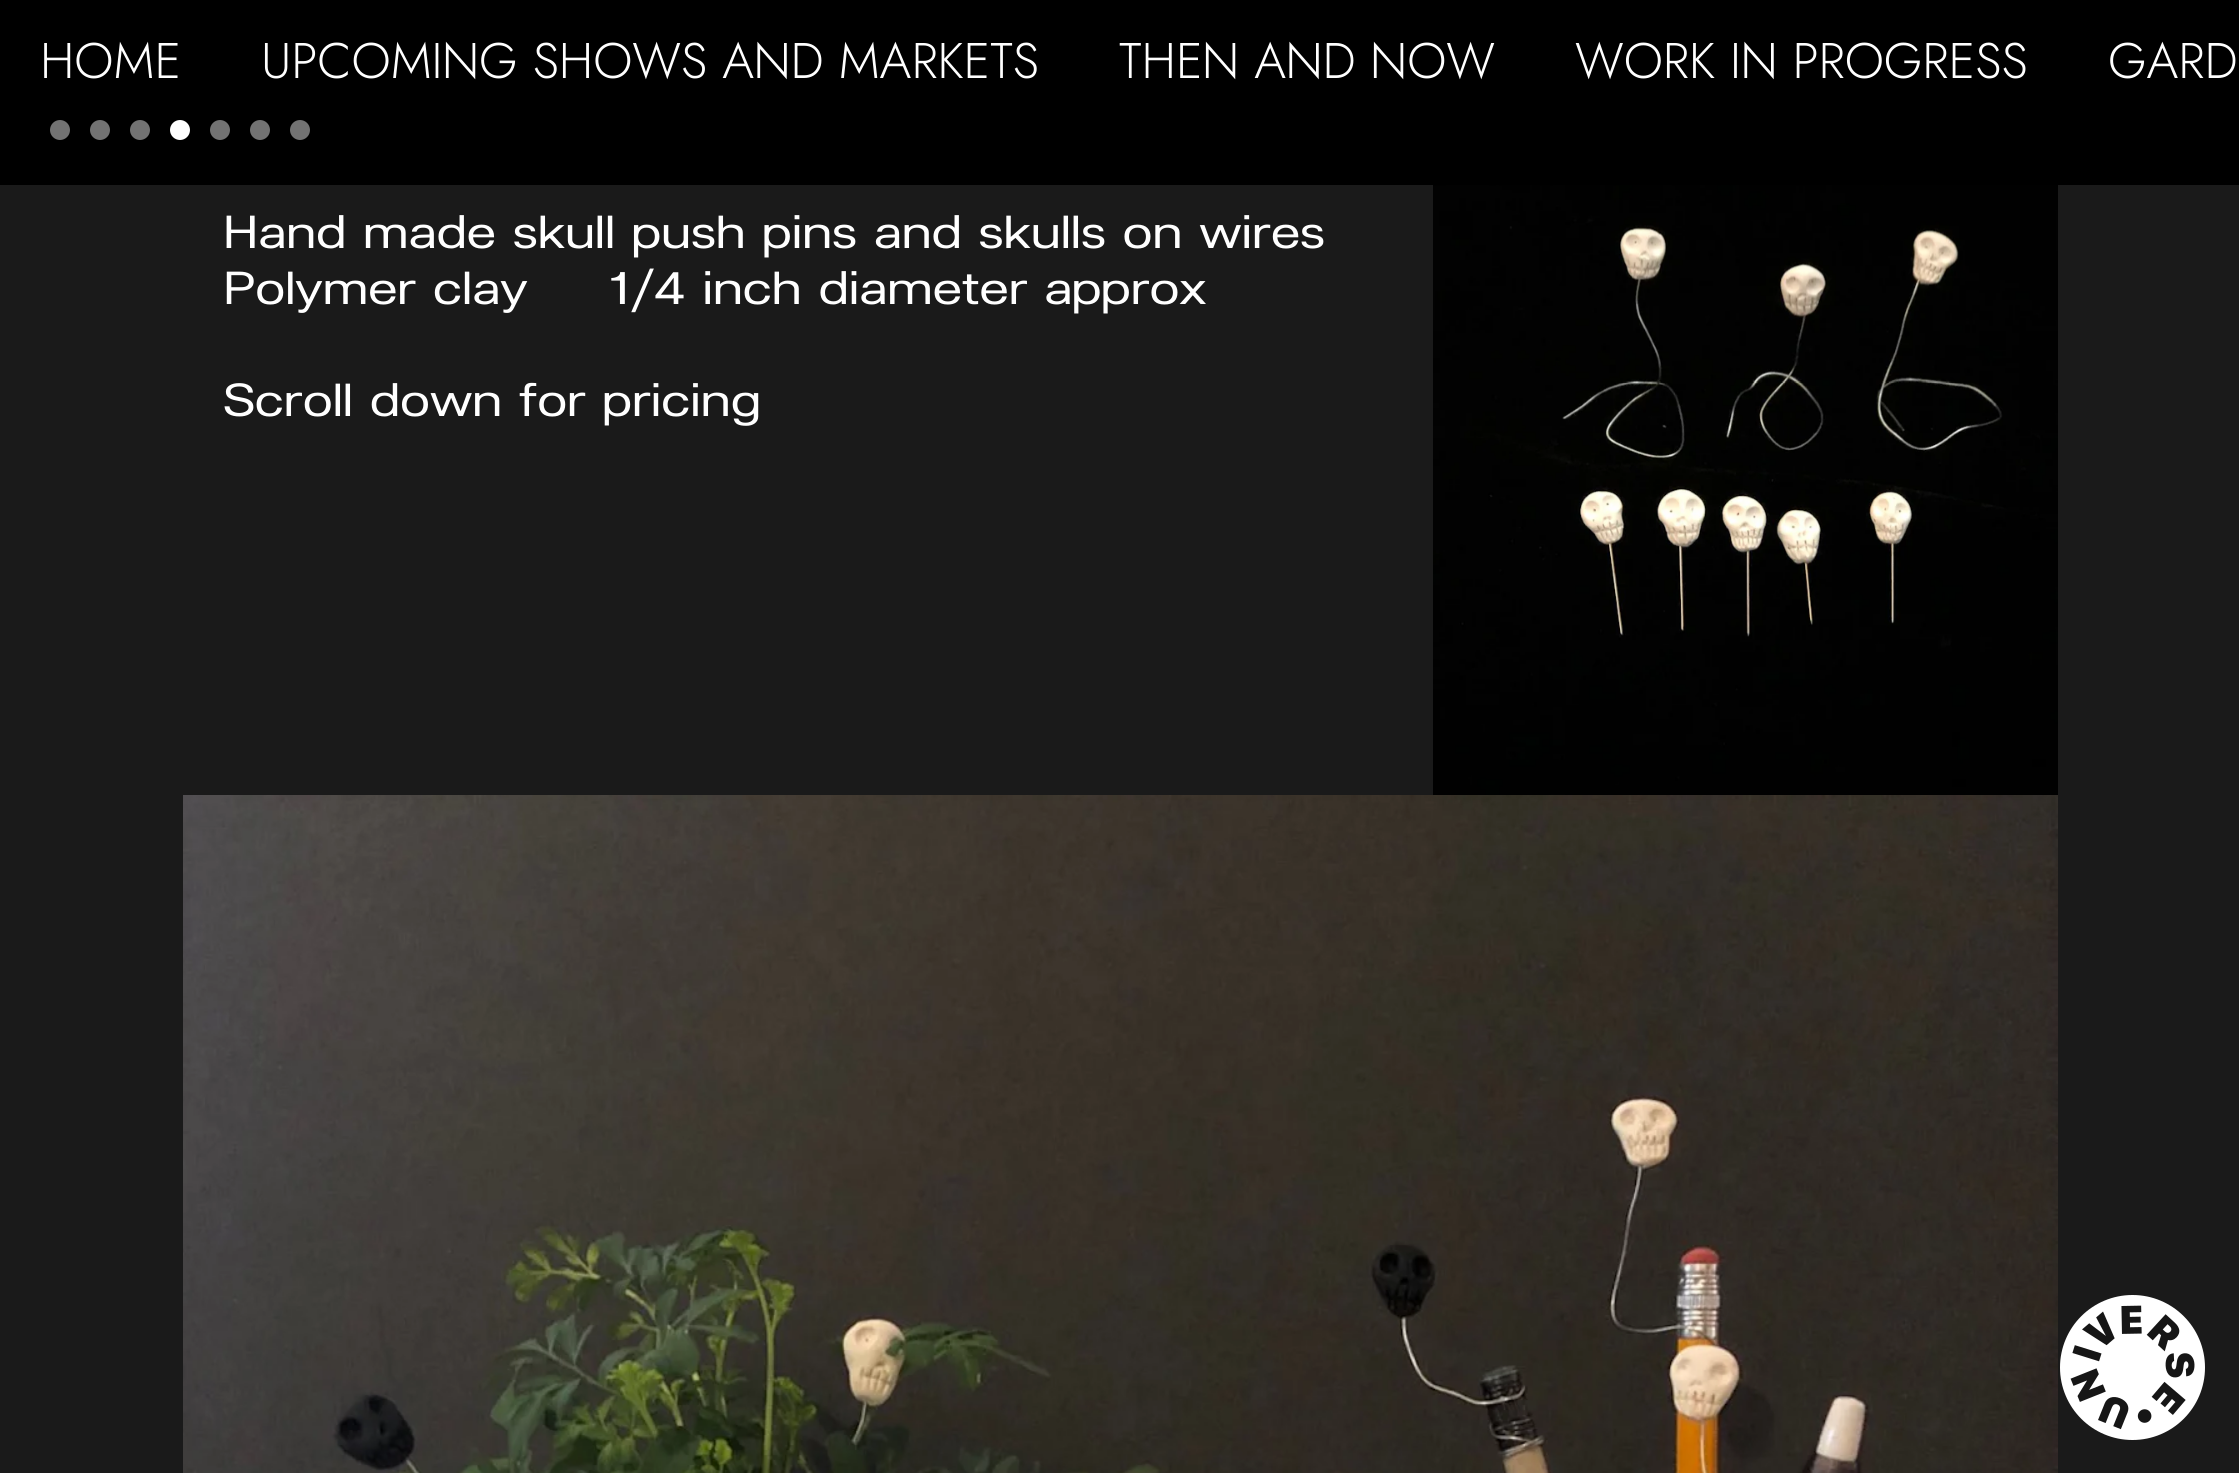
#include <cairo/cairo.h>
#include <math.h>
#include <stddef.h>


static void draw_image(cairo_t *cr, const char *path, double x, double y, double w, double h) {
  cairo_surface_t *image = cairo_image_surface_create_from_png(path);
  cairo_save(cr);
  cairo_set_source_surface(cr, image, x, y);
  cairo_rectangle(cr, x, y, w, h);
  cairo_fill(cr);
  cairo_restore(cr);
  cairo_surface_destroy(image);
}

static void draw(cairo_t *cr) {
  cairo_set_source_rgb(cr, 26 / 255.0, 26 / 255.0, 26 / 255.0);
  cairo_paint(cr);
  cairo_set_source_rgb(cr, 0, 0, 0);
  cairo_rectangle(cr, 0, 0, 2239, 185);
  cairo_fill(cr);
  cairo_set_source_rgb(cr, 115 / 255.0, 115 / 255.0, 115 / 255.0);
  cairo_arc(cr, 60, 130, 10, 0, 2 * M_PI);
  cairo_fill(cr);
  cairo_arc(cr, 100, 130, 10, 0, 2 * M_PI);
  cairo_fill(cr);
  cairo_arc(cr, 140, 130, 10, 0, 2 * M_PI);
  cairo_fill(cr);
  cairo_set_source_rgb(cr, 1, 1, 1);
  cairo_arc(cr, 180, 130, 10, 0, 2 * M_PI);
  cairo_fill(cr);
  cairo_set_source_rgb(cr, 115 / 255.0, 115 / 255.0, 115 / 255.0);
  cairo_arc(cr, 220, 130, 10, 0, 2 * M_PI);
  cairo_fill(cr);
  cairo_arc(cr, 260, 130, 10, 0, 2 * M_PI);
  cairo_fill(cr);
  cairo_arc(cr, 300, 130, 10, 0, 2 * M_PI);
  cairo_fill(cr);
  draw_image(cr, "images/1.png", 1433, 185, 625, 610);
  draw_image(cr, "images/2.png", 183, 795, 1875, 678);
  draw_image(cr, "images/3.png", 2060, 1295, 145, 145);
  cairo_select_font_face(cr, "Jost Light", CAIRO_FONT_SLANT_NORMAL, CAIRO_FONT_WEIGHT_NORMAL);
  cairo_set_font_size(cr, 50);
  cairo_set_source_rgb(cr, 1, 1, 1);
  cairo_move_to(cr, 40, 78);
  cairo_show_text(cr, "HOME");
  cairo_move_to(cr, 261, 78);
  cairo_show_text(cr, "UPCOMING SHOWS AND MARKETS");
  cairo_move_to(cr, 1119, 78);
  cairo_show_text(cr, "THEN AND NOW");
  cairo_move_to(cr, 1575, 78);
  cairo_show_text(cr, "WORK IN PROGRESS");
  cairo_move_to(cr, 2108, 78);
  cairo_show_text(cr, "GARD");
  cairo_select_font_face(cr, "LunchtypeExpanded", CAIRO_FONT_SLANT_NORMAL, CAIRO_FONT_WEIGHT_NORMAL);
  cairo_set_font_size(cr, 46.7);
  cairo_move_to(cr, 223, 248);
  cairo_show_text(cr, "Hand made skull push pins and skulls on wires");
  cairo_move_to(cr, 223, 304);
  cairo_show_text(cr, "Polymer clay     1/4 inch diameter approx");
  cairo_move_to(cr, 223, 416);
  cairo_show_text(cr, "Scroll down for pricing");
}

int main(void) {
  cairo_surface_t *surface = cairo_image_surface_create(CAIRO_FORMAT_RGB24, 2239, 1473);
  cairo_t *cr = cairo_create(surface);
  cairo_font_options_t *options = cairo_font_options_create();
  cairo_font_options_set_hint_metrics(options, CAIRO_HINT_METRICS_OFF);
  cairo_font_options_set_hint_style(options, CAIRO_HINT_STYLE_NONE);
  cairo_set_font_options(cr, options);
  cairo_set_miter_limit(cr, 4);
  draw(cr);
  cairo_surface_write_to_png(surface, "out.png");
  cairo_font_options_destroy(options);
  cairo_destroy(cr);
  cairo_surface_destroy(surface);
  return 0;
}
